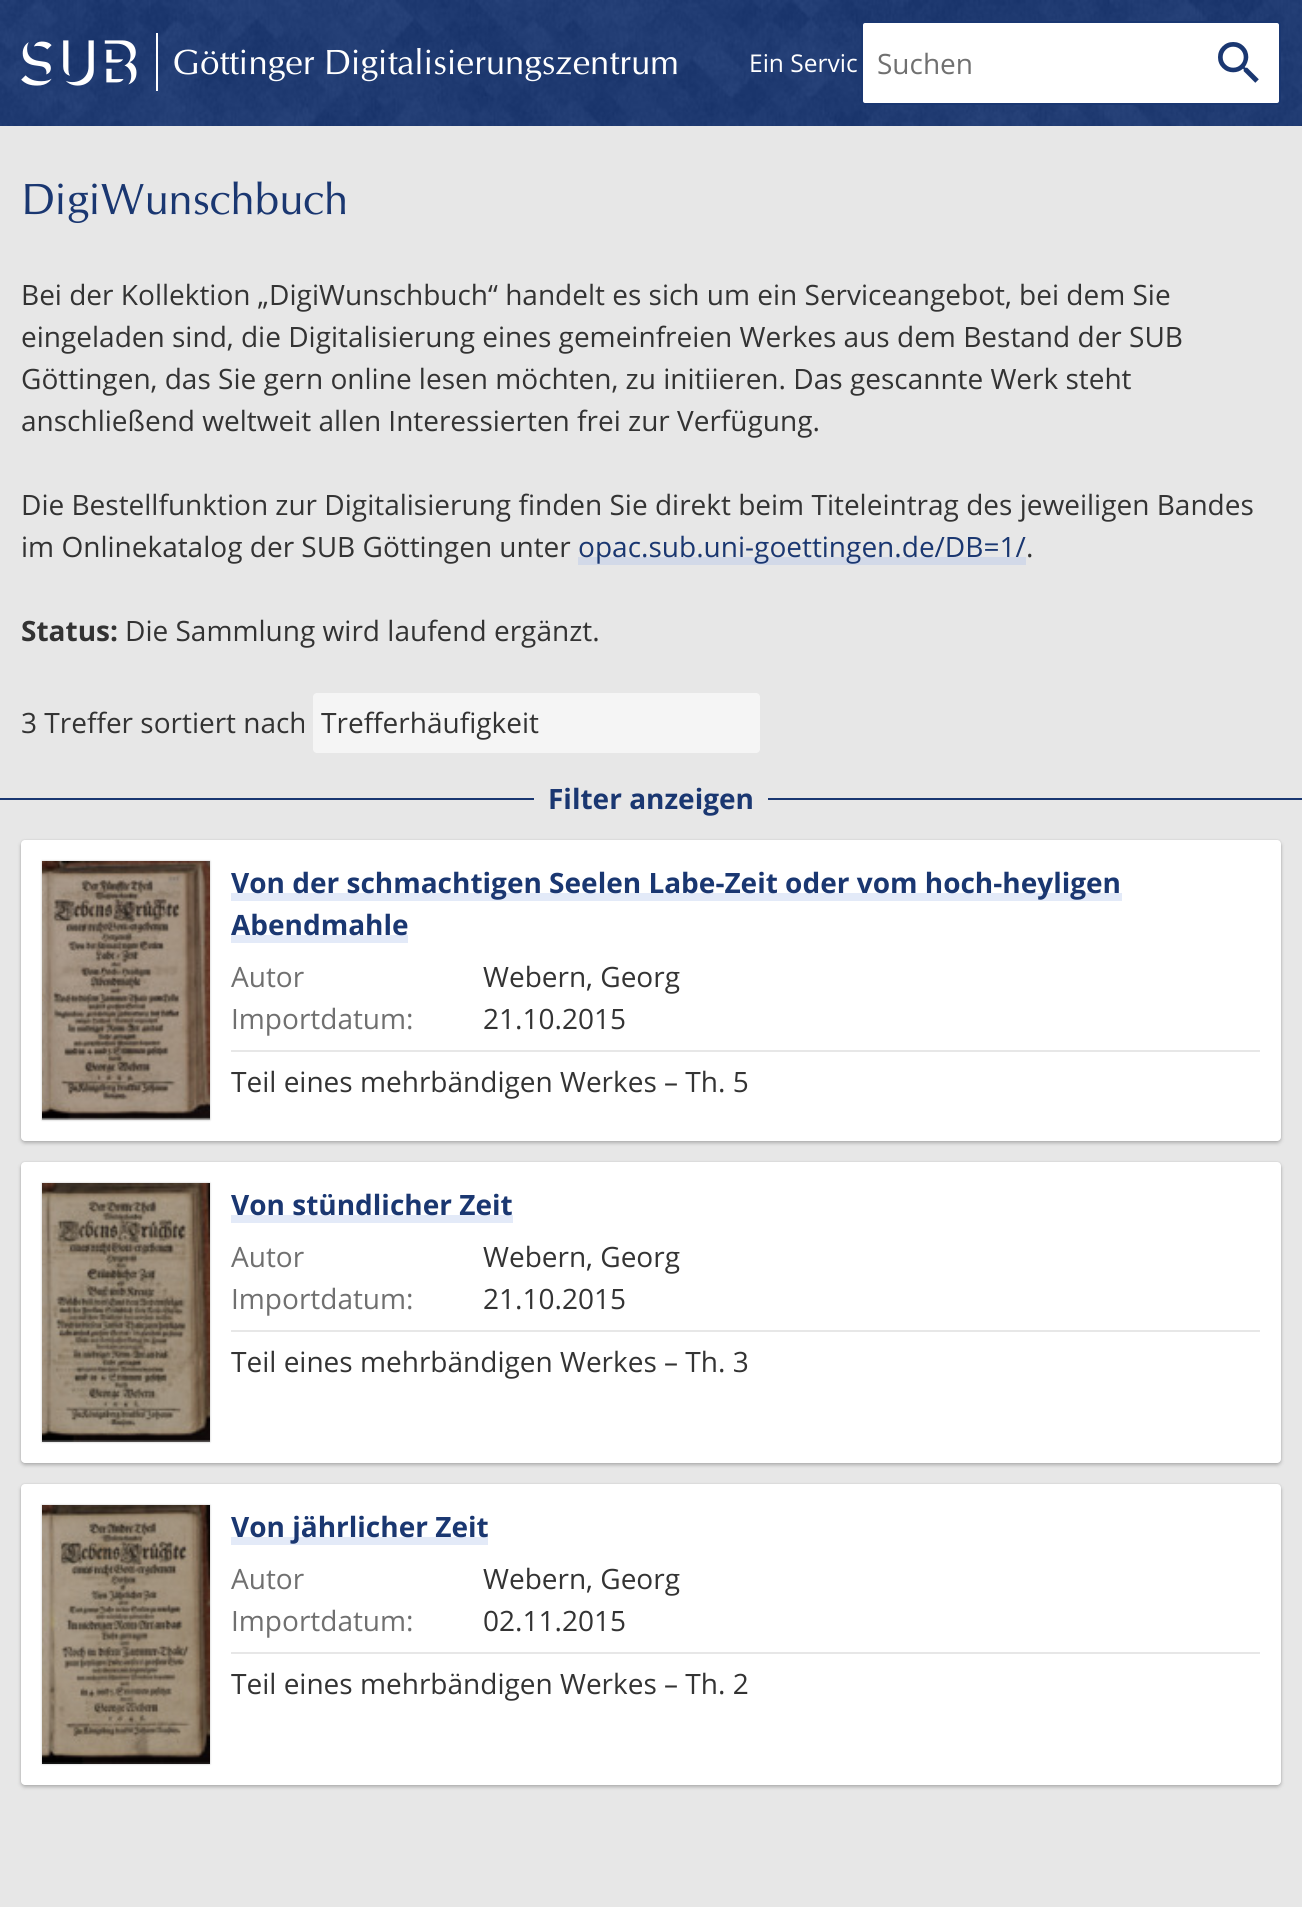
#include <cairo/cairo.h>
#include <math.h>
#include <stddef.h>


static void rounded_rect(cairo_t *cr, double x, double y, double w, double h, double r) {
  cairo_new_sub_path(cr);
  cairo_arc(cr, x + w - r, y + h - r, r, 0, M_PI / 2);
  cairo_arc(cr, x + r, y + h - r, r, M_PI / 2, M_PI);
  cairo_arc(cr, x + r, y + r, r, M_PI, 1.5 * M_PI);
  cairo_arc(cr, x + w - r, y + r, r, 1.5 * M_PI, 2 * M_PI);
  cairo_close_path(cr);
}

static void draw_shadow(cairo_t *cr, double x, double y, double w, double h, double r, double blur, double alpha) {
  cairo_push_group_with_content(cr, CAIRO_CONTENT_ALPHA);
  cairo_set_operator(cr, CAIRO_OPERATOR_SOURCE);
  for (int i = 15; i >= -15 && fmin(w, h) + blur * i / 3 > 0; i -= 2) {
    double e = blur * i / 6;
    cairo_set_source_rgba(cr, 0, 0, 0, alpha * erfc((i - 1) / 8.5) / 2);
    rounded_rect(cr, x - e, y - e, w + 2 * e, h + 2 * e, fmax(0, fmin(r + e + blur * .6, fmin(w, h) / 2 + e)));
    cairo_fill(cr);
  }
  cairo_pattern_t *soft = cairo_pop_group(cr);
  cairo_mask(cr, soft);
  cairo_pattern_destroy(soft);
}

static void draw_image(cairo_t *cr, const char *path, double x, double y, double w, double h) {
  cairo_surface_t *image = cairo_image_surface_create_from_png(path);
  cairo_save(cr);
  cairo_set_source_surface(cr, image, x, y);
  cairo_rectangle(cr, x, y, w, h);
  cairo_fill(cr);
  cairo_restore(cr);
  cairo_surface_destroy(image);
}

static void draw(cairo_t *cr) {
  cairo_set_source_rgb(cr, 231 / 255.0, 231 / 255.0, 231 / 255.0);
  cairo_paint(cr);
  draw_image(cr, "images/1.png", 0, 0, 1302, 126);
  draw_image(cr, "images/2.png", 21, 40, 116, 46);
  cairo_set_source_rgb(cr, 1, 1, 1);
  cairo_rectangle(cr, 156, 33, 2, 58);
  cairo_fill(cr);
  rounded_rect(cr, 862, 22, 418, 82, 3);
  cairo_fill_preserve(cr);
  cairo_set_source_rgb(cr, 26 / 255.0, 55 / 255.0, 113 / 255.0);
  cairo_stroke(cr);
  draw_image(cr, "images/3.png", 1218, 42, 41, 41);
  cairo_set_source_rgb(cr, 210 / 255.0, 217 / 255.0, 232 / 255.0);
  cairo_rectangle(cr, 578, 557, 448, 8);
  cairo_fill(cr);
  cairo_set_source_rgb(cr, 245 / 255.0, 245 / 255.0, 245 / 255.0);
  rounded_rect(cr, 313, 693, 447, 60, 4);
  cairo_fill(cr);
  cairo_set_source_rgb(cr, 26 / 255.0, 55 / 255.0, 113 / 255.0);
  cairo_rectangle(cr, 0, 798, 1302, 2);
  cairo_fill(cr);
  cairo_set_source_rgb(cr, 231 / 255.0, 231 / 255.0, 231 / 255.0);
  rounded_rect(cr, 534, 777, 234, 42, 4);
  cairo_fill(cr);
  cairo_set_source_rgb(cr, 0, 0, 0);
  draw_shadow(cr, 21, 842, 1260, 301, 4, 2, 0.24);
  draw_shadow(cr, 21, 840, 1260, 301, 4, 1, 0.08);
  cairo_set_source_rgb(cr, 1, 1, 1);
  rounded_rect(cr, 21, 840, 1260, 301, 4);
  cairo_fill(cr);
  cairo_set_source_rgb(cr, 0, 0, 0);
  draw_shadow(cr, 42, 861, 168, 259, 0, 1, 0.24);
  draw_image(cr, "images/4.png", 42, 861, 168, 259);
  cairo_set_source_rgb(cr, 227 / 255.0, 234 / 255.0, 248 / 255.0);
  cairo_rectangle(cr, 231, 893, 891, 8);
  cairo_fill(cr);
  cairo_rectangle(cr, 231, 935, 177, 8);
  cairo_fill(cr);
  cairo_set_source_rgb(cr, 231 / 255.0, 231 / 255.0, 231 / 255.0);
  cairo_rectangle(cr, 231, 1050, 1029, 2);
  cairo_fill(cr);
  cairo_set_source_rgb(cr, 0, 0, 0);
  draw_shadow(cr, 21, 1164, 1260, 301, 4, 2, 0.24);
  draw_shadow(cr, 21, 1162, 1260, 301, 4, 1, 0.08);
  cairo_set_source_rgb(cr, 1, 1, 1);
  rounded_rect(cr, 21, 1162, 1260, 301, 4);
  cairo_fill(cr);
  cairo_set_source_rgb(cr, 0, 0, 0);
  draw_shadow(cr, 42, 1183, 168, 259, 0, 1, 0.24);
  draw_image(cr, "images/5.png", 42, 1183, 168, 259);
  cairo_set_source_rgb(cr, 227 / 255.0, 234 / 255.0, 248 / 255.0);
  cairo_rectangle(cr, 231, 1215, 282, 8);
  cairo_fill(cr);
  cairo_set_source_rgb(cr, 231 / 255.0, 231 / 255.0, 231 / 255.0);
  cairo_rectangle(cr, 231, 1330, 1029, 2);
  cairo_fill(cr);
  cairo_set_source_rgb(cr, 0, 0, 0);
  draw_shadow(cr, 21, 1486, 1260, 301, 4, 2, 0.24);
  draw_shadow(cr, 21, 1484, 1260, 301, 4, 1, 0.08);
  cairo_set_source_rgb(cr, 1, 1, 1);
  rounded_rect(cr, 21, 1484, 1260, 301, 4);
  cairo_fill(cr);
  cairo_set_source_rgb(cr, 0, 0, 0);
  draw_shadow(cr, 42, 1505, 168, 259, 0, 1, 0.24);
  draw_image(cr, "images/6.png", 42, 1505, 168, 259);
  cairo_set_source_rgb(cr, 227 / 255.0, 234 / 255.0, 248 / 255.0);
  cairo_rectangle(cr, 231, 1537, 257, 8);
  cairo_fill(cr);
  cairo_set_source_rgb(cr, 231 / 255.0, 231 / 255.0, 231 / 255.0);
  cairo_rectangle(cr, 231, 1652, 1029, 2);
  cairo_fill(cr);
  cairo_select_font_face(cr, "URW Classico", CAIRO_FONT_SLANT_NORMAL, CAIRO_FONT_WEIGHT_NORMAL);
  cairo_set_font_size(cr, 35);
  cairo_set_source_rgb(cr, 1, 1, 1);
  cairo_move_to(cr, 173, 74);
  cairo_show_text(cr, "Göttinger Digitalisierungszentrum");
  cairo_select_font_face(cr, "Open Sans", CAIRO_FONT_SLANT_NORMAL, CAIRO_FONT_WEIGHT_NORMAL);
  cairo_set_font_size(cr, 24.5);
  cairo_move_to(cr, 749, 72);
  cairo_show_text(cr, "Ein Servic");
  cairo_set_font_size(cr, 28);
  cairo_set_source_rgb(cr, 112 / 255.0, 112 / 255.0, 112 / 255.0);
  cairo_move_to(cr, 877, 74);
  cairo_show_text(cr, "Suchen");
  cairo_select_font_face(cr, "URW Classico", CAIRO_FONT_SLANT_NORMAL, CAIRO_FONT_WEIGHT_NORMAL);
  cairo_set_font_size(cr, 43.75);
  cairo_set_source_rgb(cr, 26 / 255.0, 55 / 255.0, 113 / 255.0);
  cairo_move_to(cr, 21, 214);
  cairo_show_text(cr, "DigiWunschbuch");
  cairo_select_font_face(cr, "Open Sans", CAIRO_FONT_SLANT_NORMAL, CAIRO_FONT_WEIGHT_NORMAL);
  cairo_set_font_size(cr, 28);
  cairo_set_source_rgb(cr, 51 / 255.0, 51 / 255.0, 51 / 255.0);
  cairo_move_to(cr, 21, 305);
  cairo_show_text(cr, "Bei der Kollektion „DigiWunschbuch“ handelt es sich um ein Serviceangebot, bei dem Sie");
  cairo_move_to(cr, 21, 347);
  cairo_show_text(cr, "eingeladen sind, die Digitalisierung eines gemeinfreien Werkes aus dem Bestand der SUB");
  cairo_move_to(cr, 21, 389);
  cairo_show_text(cr, "Göttingen, das Sie gern online lesen möchten, zu initiieren. Das gescannte Werk steht");
  cairo_move_to(cr, 21, 431);
  cairo_show_text(cr, "anschließend weltweit allen Interessierten frei zur Verfügung.");
  cairo_move_to(cr, 21, 515);
  cairo_show_text(cr, "Die Bestellfunktion zur Digitalisierung finden Sie direkt beim Titeleintrag des jeweiligen Bandes");
  cairo_move_to(cr, 21, 557);
  cairo_show_text(cr, "im Onlinekatalog der SUB Göttingen unter");
  cairo_set_source_rgb(cr, 26 / 255.0, 55 / 255.0, 113 / 255.0);
  cairo_move_to(cr, 578, 557);
  cairo_show_text(cr, "opac.sub.uni-goettingen.de/DB=1/");
  cairo_set_source_rgb(cr, 51 / 255.0, 51 / 255.0, 51 / 255.0);
  cairo_move_to(cr, 1026, 557);
  cairo_show_text(cr, ".");
  cairo_select_font_face(cr, "Open Sans", CAIRO_FONT_SLANT_NORMAL, CAIRO_FONT_WEIGHT_BOLD);
  cairo_move_to(cr, 21, 641);
  cairo_show_text(cr, "Status:");
  cairo_select_font_face(cr, "Open Sans", CAIRO_FONT_SLANT_NORMAL, CAIRO_FONT_WEIGHT_NORMAL);
  cairo_move_to(cr, 125, 641);
  cairo_show_text(cr, "Die Sammlung wird laufend ergänzt.");
  cairo_move_to(cr, 21, 733);
  cairo_show_text(cr, "3 Treffer sortiert nach");
  cairo_move_to(cr, 321, 733);
  cairo_show_text(cr, "Trefferhäufigkeit");
  cairo_select_font_face(cr, "Open Sans", CAIRO_FONT_SLANT_NORMAL, CAIRO_FONT_WEIGHT_BOLD);
  cairo_set_source_rgb(cr, 26 / 255.0, 55 / 255.0, 113 / 255.0);
  cairo_move_to(cr, 548, 809);
  cairo_show_text(cr, "Filter anzeigen");
  cairo_move_to(cr, 231, 893);
  cairo_show_text(cr, "Von der schmachtigen Seelen Labe-Zeit oder vom hoch-heyligen");
  cairo_move_to(cr, 231, 935);
  cairo_show_text(cr, "Abendmahle");
  cairo_select_font_face(cr, "Open Sans", CAIRO_FONT_SLANT_NORMAL, CAIRO_FONT_WEIGHT_NORMAL);
  cairo_set_source_rgb(cr, 112 / 255.0, 112 / 255.0, 112 / 255.0);
  cairo_move_to(cr, 231, 987);
  cairo_show_text(cr, "Autor");
  cairo_set_source_rgb(cr, 51 / 255.0, 51 / 255.0, 51 / 255.0);
  cairo_move_to(cr, 483, 987);
  cairo_show_text(cr, "Webern, Georg");
  cairo_set_source_rgb(cr, 112 / 255.0, 112 / 255.0, 112 / 255.0);
  cairo_move_to(cr, 231, 1029);
  cairo_show_text(cr, "Importdatum:");
  cairo_set_source_rgb(cr, 51 / 255.0, 51 / 255.0, 51 / 255.0);
  cairo_move_to(cr, 483, 1029);
  cairo_show_text(cr, "21.10.2015");
  cairo_move_to(cr, 231, 1092);
  cairo_show_text(cr, "Teil eines mehrbändigen Werkes – Th. 5");
  cairo_select_font_face(cr, "Open Sans", CAIRO_FONT_SLANT_NORMAL, CAIRO_FONT_WEIGHT_BOLD);
  cairo_set_source_rgb(cr, 26 / 255.0, 55 / 255.0, 113 / 255.0);
  cairo_move_to(cr, 231, 1215);
  cairo_show_text(cr, "Von stündlicher Zeit");
  cairo_select_font_face(cr, "Open Sans", CAIRO_FONT_SLANT_NORMAL, CAIRO_FONT_WEIGHT_NORMAL);
  cairo_set_source_rgb(cr, 112 / 255.0, 112 / 255.0, 112 / 255.0);
  cairo_move_to(cr, 231, 1267);
  cairo_show_text(cr, "Autor");
  cairo_set_source_rgb(cr, 51 / 255.0, 51 / 255.0, 51 / 255.0);
  cairo_move_to(cr, 483, 1267);
  cairo_show_text(cr, "Webern, Georg");
  cairo_set_source_rgb(cr, 112 / 255.0, 112 / 255.0, 112 / 255.0);
  cairo_move_to(cr, 231, 1309);
  cairo_show_text(cr, "Importdatum:");
  cairo_set_source_rgb(cr, 51 / 255.0, 51 / 255.0, 51 / 255.0);
  cairo_move_to(cr, 483, 1309);
  cairo_show_text(cr, "21.10.2015");
  cairo_move_to(cr, 231, 1372);
  cairo_show_text(cr, "Teil eines mehrbändigen Werkes – Th. 3");
  cairo_select_font_face(cr, "Open Sans", CAIRO_FONT_SLANT_NORMAL, CAIRO_FONT_WEIGHT_BOLD);
  cairo_set_source_rgb(cr, 26 / 255.0, 55 / 255.0, 113 / 255.0);
  cairo_move_to(cr, 231, 1537);
  cairo_show_text(cr, "Von jährlicher Zeit");
  cairo_select_font_face(cr, "Open Sans", CAIRO_FONT_SLANT_NORMAL, CAIRO_FONT_WEIGHT_NORMAL);
  cairo_set_source_rgb(cr, 112 / 255.0, 112 / 255.0, 112 / 255.0);
  cairo_move_to(cr, 231, 1589);
  cairo_show_text(cr, "Autor");
  cairo_set_source_rgb(cr, 51 / 255.0, 51 / 255.0, 51 / 255.0);
  cairo_move_to(cr, 483, 1589);
  cairo_show_text(cr, "Webern, Georg");
  cairo_set_source_rgb(cr, 112 / 255.0, 112 / 255.0, 112 / 255.0);
  cairo_move_to(cr, 231, 1631);
  cairo_show_text(cr, "Importdatum:");
  cairo_set_source_rgb(cr, 51 / 255.0, 51 / 255.0, 51 / 255.0);
  cairo_move_to(cr, 483, 1631);
  cairo_show_text(cr, "02.11.2015");
  cairo_move_to(cr, 231, 1694);
  cairo_show_text(cr, "Teil eines mehrbändigen Werkes – Th. 2");
}

int main(void) {
  cairo_surface_t *surface = cairo_image_surface_create(CAIRO_FORMAT_RGB24, 1302, 1907);
  cairo_t *cr = cairo_create(surface);
  cairo_font_options_t *options = cairo_font_options_create();
  cairo_font_options_set_hint_metrics(options, CAIRO_HINT_METRICS_OFF);
  cairo_font_options_set_hint_style(options, CAIRO_HINT_STYLE_NONE);
  cairo_set_font_options(cr, options);
  cairo_set_miter_limit(cr, 4);
  draw(cr);
  cairo_surface_write_to_png(surface, "out.png");
  cairo_font_options_destroy(options);
  cairo_destroy(cr);
  cairo_surface_destroy(surface);
  return 0;
}
